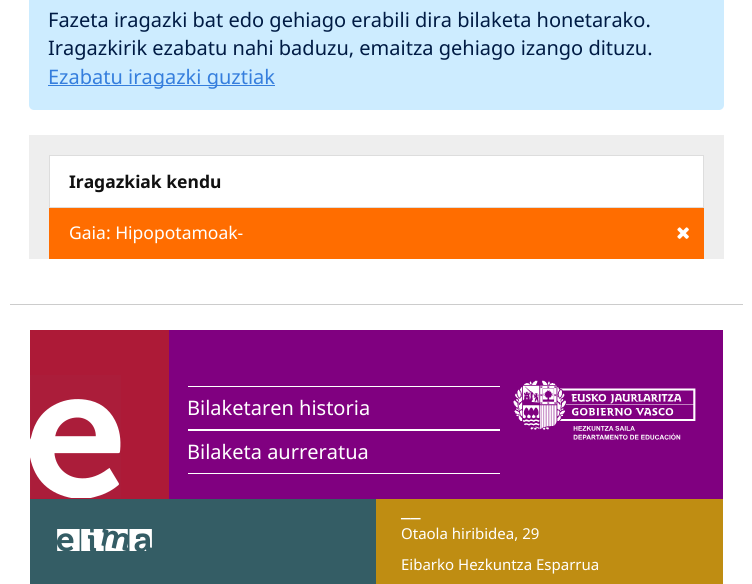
#include <cairo/cairo.h>
#include <math.h>
#include <stddef.h>


static void rounded_rect(cairo_t *cr, double x, double y, double w, double h, double r) {
  cairo_new_sub_path(cr);
  cairo_arc(cr, x + w - r, y + h - r, r, 0, M_PI / 2);
  cairo_arc(cr, x + r, y + h - r, r, M_PI / 2, M_PI);
  cairo_arc(cr, x + r, y + r, r, M_PI, 1.5 * M_PI);
  cairo_arc(cr, x + w - r, y + r, r, 1.5 * M_PI, 2 * M_PI);
  cairo_close_path(cr);
}

static void draw_image(cairo_t *cr, const char *path, double x, double y, double w, double h) {
  cairo_surface_t *image = cairo_image_surface_create_from_png(path);
  cairo_save(cr);
  cairo_set_source_surface(cr, image, x, y);
  cairo_rectangle(cr, x, y, w, h);
  cairo_fill(cr);
  cairo_restore(cr);
  cairo_surface_destroy(image);
}

static void draw(cairo_t *cr) {
  cairo_set_source_rgb(cr, 1, 1, 1);
  cairo_paint(cr);
  cairo_set_source_rgb(cr, 205 / 255.0, 236 / 255.0, 1);
  rounded_rect(cr, 29, -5, 695, 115, 5);
  cairo_fill(cr);
  cairo_set_source_rgb(cr, 53 / 255.0, 126 / 255.0, 221 / 255.0);
  cairo_rectangle(cr, 48, 85, 227, 1);
  cairo_fill(cr);
  cairo_set_source_rgb(cr, 238 / 255.0, 238 / 255.0, 238 / 255.0);
  cairo_rectangle(cr, 29, 135, 695, 124);
  cairo_fill(cr);
  cairo_set_source_rgb(cr, 1, 1, 1);
  cairo_rectangle(cr, 49.5, 155.5, 654, 52);
  cairo_fill_preserve(cr);
  cairo_set_source_rgb(cr, 221 / 255.0, 221 / 255.0, 221 / 255.0);
  cairo_set_line_width(cr, 1);
  cairo_stroke(cr);
  cairo_set_source_rgb(cr, 1, 109 / 255.0, 0);
  cairo_rectangle(cr, 49, 208, 655, 51);
  cairo_fill(cr);
  draw_image(cr, "images/1.png", 677, 227, 12, 12);
  cairo_set_source_rgb(cr, 204 / 255.0, 204 / 255.0, 204 / 255.0);
  cairo_rectangle(cr, 10, 304, 733, 1);
  cairo_fill(cr);
  cairo_set_source_rgb(cr, 173 / 255.0, 26 / 255.0, 55 / 255.0);
  cairo_rectangle(cr, 30, 330, 139, 169);
  cairo_fill(cr);
  draw_image(cr, "images/2.png", 30, 375, 91, 123);
  cairo_set_source_rgb(cr, 128 / 255.0, 0, 128 / 255.0);
  cairo_rectangle(cr, 169, 330, 554, 169);
  cairo_fill(cr);
  cairo_set_source_rgb(cr, 1, 1, 1);
  cairo_rectangle(cr, 188, 386, 312, 1);
  cairo_fill(cr);
  cairo_rectangle(cr, 188, 429, 312, 2);
  cairo_fill(cr);
  cairo_rectangle(cr, 188, 473, 312, 1);
  cairo_fill(cr);
  draw_image(cr, "images/3.png", 513, 380, 183, 60);
  cairo_set_source_rgb(cr, 52 / 255.0, 93 / 255.0, 101 / 255.0);
  cairo_rectangle(cr, 30, 499, 346, 85);
  cairo_fill(cr);
  draw_image(cr, "images/4.png", 57, 529, 95, 22);
  cairo_set_source_rgb(cr, 191 / 255.0, 141 / 255.0, 18 / 255.0);
  cairo_rectangle(cr, 376, 499, 347, 85);
  cairo_fill(cr);
  cairo_select_font_face(cr, "Noto Sans", CAIRO_FONT_SLANT_NORMAL, CAIRO_FONT_WEIGHT_NORMAL);
  cairo_set_font_size(cr, 20);
  cairo_set_source_rgb(cr, 0, 27 / 255.0, 68 / 255.0);
  cairo_move_to(cr, 48, 27);
  cairo_show_text(cr, "Fazeta iragazki bat edo gehiago erabili dira bilaketa honetarako.");
  cairo_move_to(cr, 48, 55);
  cairo_show_text(cr, "Iragazkirik ezabatu nahi baduzu, emaitza gehiago izango dituzu.");
  cairo_set_source_rgb(cr, 53 / 255.0, 126 / 255.0, 221 / 255.0);
  cairo_move_to(cr, 48, 84);
  cairo_show_text(cr, "Ezabatu iragazki guztiak");
  cairo_select_font_face(cr, "Noto Sans", CAIRO_FONT_SLANT_NORMAL, CAIRO_FONT_WEIGHT_BOLD);
  cairo_set_font_size(cr, 17.5);
  cairo_set_source_rgb(cr, 17 / 255.0, 17 / 255.0, 17 / 255.0);
  cairo_move_to(cr, 69, 188);
  cairo_show_text(cr, "Iragazkiak kendu");
  cairo_select_font_face(cr, "Noto Sans", CAIRO_FONT_SLANT_NORMAL, CAIRO_FONT_WEIGHT_NORMAL);
  cairo_set_source_rgb(cr, 1, 1, 1);
  cairo_move_to(cr, 69, 239);
  cairo_show_text(cr, "Gaia: Hipopotamoak-");
  cairo_set_font_size(cr, 20);
  cairo_move_to(cr, 187, 415);
  cairo_show_text(cr, "Bilaketaren historia");
  cairo_move_to(cr, 187, 459);
  cairo_show_text(cr, "Bilaketa aurreratua");
  cairo_set_font_size(cr, 22);
  cairo_move_to(cr, 401, 516);
  cairo_show_text(cr, "__");
  cairo_set_font_size(cr, 15);
  cairo_move_to(cr, 401, 539);
  cairo_show_text(cr, "Otaola hiribidea, 29");
  cairo_move_to(cr, 401, 570);
  cairo_show_text(cr, "Eibarko Hezkuntza Esparrua");
}

int main(void) {
  cairo_surface_t *surface = cairo_image_surface_create(CAIRO_FORMAT_RGB24, 752, 584);
  cairo_t *cr = cairo_create(surface);
  cairo_font_options_t *options = cairo_font_options_create();
  cairo_font_options_set_hint_metrics(options, CAIRO_HINT_METRICS_OFF);
  cairo_font_options_set_hint_style(options, CAIRO_HINT_STYLE_NONE);
  cairo_set_font_options(cr, options);
  cairo_set_miter_limit(cr, 4);
  draw(cr);
  cairo_surface_write_to_png(surface, "out.png");
  cairo_font_options_destroy(options);
  cairo_destroy(cr);
  cairo_surface_destroy(surface);
  return 0;
}
